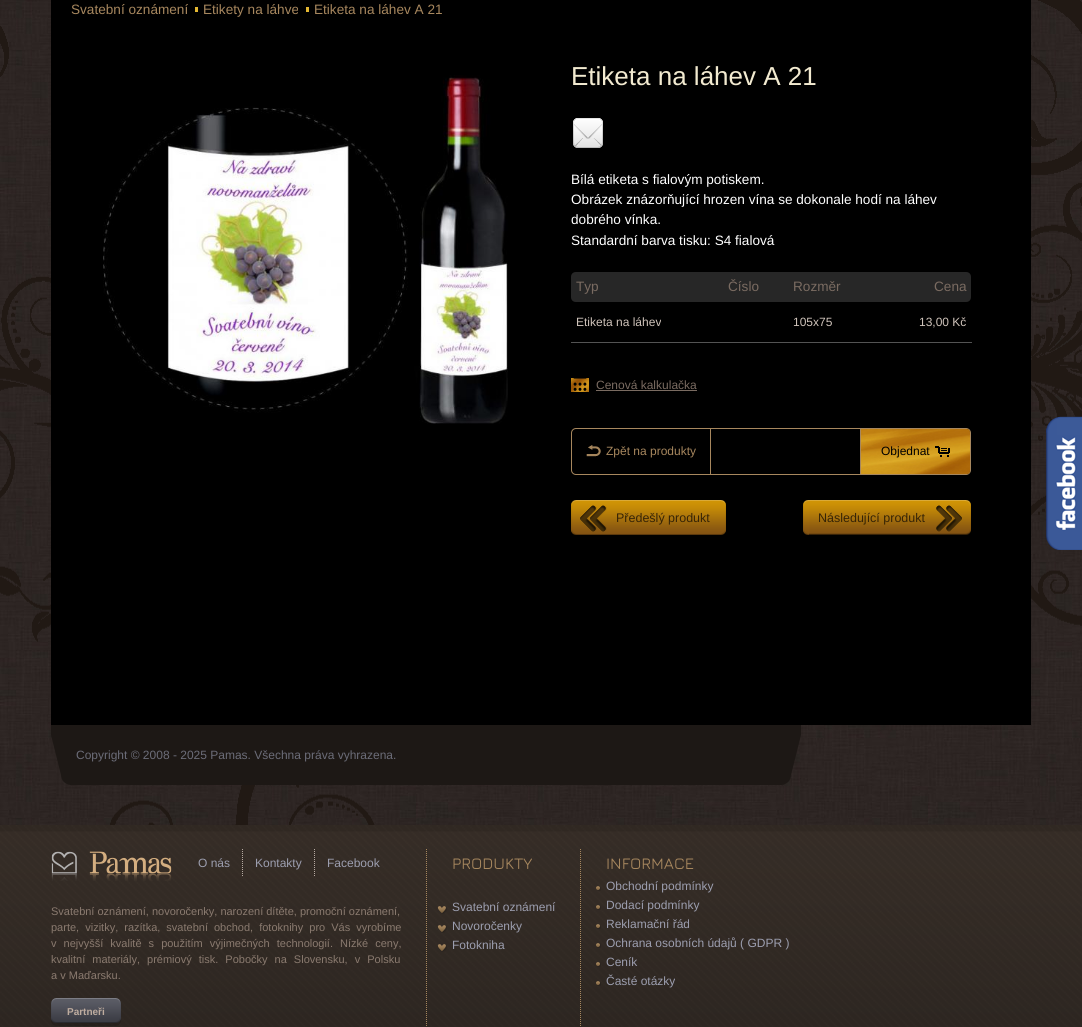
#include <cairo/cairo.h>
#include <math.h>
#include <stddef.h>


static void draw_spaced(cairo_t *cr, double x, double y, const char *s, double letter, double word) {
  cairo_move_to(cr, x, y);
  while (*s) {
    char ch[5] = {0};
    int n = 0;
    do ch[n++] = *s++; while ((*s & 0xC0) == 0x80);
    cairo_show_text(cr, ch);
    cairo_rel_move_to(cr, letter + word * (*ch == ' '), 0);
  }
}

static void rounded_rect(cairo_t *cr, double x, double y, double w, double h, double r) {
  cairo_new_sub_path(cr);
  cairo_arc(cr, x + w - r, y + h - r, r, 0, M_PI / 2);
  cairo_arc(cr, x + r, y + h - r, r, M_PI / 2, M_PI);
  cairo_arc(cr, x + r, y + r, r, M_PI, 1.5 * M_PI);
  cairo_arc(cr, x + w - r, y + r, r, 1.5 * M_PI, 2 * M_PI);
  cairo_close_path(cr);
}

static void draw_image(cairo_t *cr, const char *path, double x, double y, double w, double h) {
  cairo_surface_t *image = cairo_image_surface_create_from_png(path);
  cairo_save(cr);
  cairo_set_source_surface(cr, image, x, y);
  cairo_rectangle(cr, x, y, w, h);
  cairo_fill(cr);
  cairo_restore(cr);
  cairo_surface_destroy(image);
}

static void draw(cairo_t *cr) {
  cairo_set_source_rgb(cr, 1, 1, 1);
  cairo_paint(cr);
  draw_image(cr, "images/1.png", 0, 0, 1082, 825);
  draw_image(cr, "images/2.png", 0, 0, 1082, 825);
  cairo_set_source_rgb(cr, 0, 0, 0);
  cairo_rectangle(cr, 51, 0, 980, 725);
  cairo_fill(cr);
  cairo_set_source_rgb(cr, 228 / 255.0, 184 / 255.0, 50 / 255.0);
  cairo_rectangle(cr, 195, 7, 3, 5);
  cairo_fill(cr);
  cairo_rectangle(cr, 306, 7, 3, 5);
  cairo_fill(cr);
  draw_image(cr, "images/3.png", 103, 75, 405, 349);
  draw_image(cr, "images/4.png", 573, 118, 30, 30);
  cairo_set_source_rgb(cr, 39 / 255.0, 39 / 255.0, 39 / 255.0);
  cairo_new_path(cr);
  cairo_move_to(cr, 576, 272);
  cairo_line_to(cr, 723, 272);
  cairo_line_to(cr, 723, 302);
  cairo_line_to(cr, 576, 302);
  cairo_curve_to(cr, 573, 302, 571, 300, 571, 297);
  cairo_line_to(cr, 571, 277);
  cairo_curve_to(cr, 571, 274, 573, 272, 576, 272);
  cairo_close_path(cr);
  cairo_fill(cr);
  cairo_rectangle(cr, 723, 272, 157, 30);
  cairo_fill(cr);
  cairo_new_path(cr);
  cairo_move_to(cr, 880, 272);
  cairo_line_to(cr, 966, 272);
  cairo_curve_to(cr, 969, 272, 971, 274, 971, 277);
  cairo_line_to(cr, 971, 297);
  cairo_curve_to(cr, 971, 300, 969, 302, 966, 302);
  cairo_line_to(cr, 880, 302);
  cairo_close_path(cr);
  cairo_fill(cr);
  cairo_set_source_rgb(cr, 83 / 255.0, 83 / 255.0, 83 / 255.0);
  cairo_rectangle(cr, 571, 342, 401, 1);
  cairo_fill(cr);
  draw_image(cr, "images/5.png", 571, 378, 18, 14);
  cairo_set_source_rgb(cr, 122 / 255.0, 107 / 255.0, 97 / 255.0);
  cairo_rectangle(cr, 596, 390, 101, 1);
  cairo_fill(cr);
  rounded_rect(cr, 571.5, 428.5, 399, 46, 4.5);
  cairo_set_source_rgb(cr, 167 / 255.0, 135 / 255.0, 94 / 255.0);
  cairo_set_line_width(cr, 1);
  cairo_stroke(cr);
  cairo_rectangle(cr, 710, 429, 1, 45);
  cairo_fill(cr);
  draw_image(cr, "images/6.png", 586, 445, 15, 12);
  draw_image(cr, "images/7.png", 861, 429, 109, 45);
  cairo_rectangle(cr, 860, 429, 1, 45);
  cairo_fill(cr);
  draw_image(cr, "images/8.png", 935, 446, 15, 11);
  draw_image(cr, "images/9.png", 571, 500, 150, 35);
  draw_image(cr, "images/10.png", 721, 500, 5, 35);
  draw_image(cr, "images/11.png", 809, 500, 162, 35);
  draw_image(cr, "images/12.png", 803, 500, 6, 35);
  draw_image(cr, "images/13.png", 1046, 416, 36, 134);
  draw_image(cr, "images/14.png", 51, 725, 750, 60);
  draw_image(cr, "images/15.png", 0, 825, 1082, 202);
  draw_image(cr, "images/16.png", 51, 851, 121, 30);
  cairo_new_path(cr);
  cairo_move_to(cr, 242.5, 849);
  cairo_line_to(cr, 242.5, 877);
  cairo_set_source_rgb(cr, 182 / 255.0, 170 / 255.0, 162 / 255.0);
  cairo_set_dash(cr, (double[]){1, 1}, 2, 0);
  cairo_stroke(cr);
  cairo_new_path(cr);
  cairo_move_to(cr, 314.5, 849);
  cairo_line_to(cr, 314.5, 877);
  cairo_stroke(cr);
  draw_image(cr, "images/17.png", 51, 998, 70, 28);
  cairo_new_path(cr);
  cairo_move_to(cr, 426.5, 849);
  cairo_line_to(cr, 426.5, 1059);
  cairo_set_source_rgb(cr, 167 / 255.0, 135 / 255.0, 94 / 255.0);
  cairo_stroke(cr);
  draw_image(cr, "images/18.png", 437, 906, 10, 8);
  draw_image(cr, "images/19.png", 437, 925, 10, 8);
  draw_image(cr, "images/20.png", 437, 944, 10, 8);
  cairo_new_path(cr);
  cairo_move_to(cr, 580.5, 849);
  cairo_line_to(cr, 580.5, 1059);
  cairo_stroke(cr);
  draw_image(cr, "images/21.png", 596, 886, 5, 5);
  draw_image(cr, "images/22.png", 596, 905, 5, 5);
  draw_image(cr, "images/23.png", 596, 924, 5, 5);
  draw_image(cr, "images/24.png", 596, 943, 5, 5);
  draw_image(cr, "images/25.png", 596, 962, 5, 5);
  draw_image(cr, "images/26.png", 596, 981, 5, 5);
  cairo_select_font_face(cr, "Liberation Sans", CAIRO_FONT_SLANT_NORMAL, CAIRO_FONT_WEIGHT_NORMAL);
  cairo_set_font_size(cr, 13.6);
  cairo_move_to(cr, 71, 14);
  cairo_show_text(cr, "Svatební oznámení");
  cairo_move_to(cr, 203, 14);
  cairo_show_text(cr, "Etikety na láhve");
  cairo_move_to(cr, 314, 14);
  cairo_show_text(cr, "Etiketa na láhev A 21");
  cairo_set_font_size(cr, 26);
  cairo_set_source_rgb(cr, 242 / 255.0, 234 / 255.0, 208 / 255.0);
  cairo_move_to(cr, 571, 85);
  cairo_show_text(cr, "Etiketa na láhev A 21");
  cairo_set_font_size(cr, 13.6);
  cairo_set_source_rgb(cr, 1, 1, 1);
  cairo_move_to(cr, 571, 184);
  cairo_show_text(cr, "Bílá etiketa s fialovým potiskem.");
  cairo_move_to(cr, 571, 204);
  cairo_show_text(cr, "Obrázek znázorňující hrozen vína se dokonale hodí na láhev");
  cairo_move_to(cr, 571, 224);
  cairo_show_text(cr, "dobrého vínka.");
  cairo_move_to(cr, 571, 245);
  cairo_show_text(cr, "Standardní barva tisku: S4 fialová");
  cairo_set_source_rgb(cr, 122 / 255.0, 107 / 255.0, 97 / 255.0);
  cairo_move_to(cr, 576, 291);
  cairo_show_text(cr, "Typ");
  cairo_move_to(cr, 728, 291);
  cairo_show_text(cr, "Číslo");
  cairo_move_to(cr, 793, 291);
  cairo_show_text(cr, "Rozměr");
  cairo_move_to(cr, 934, 291);
  cairo_show_text(cr, "Cena");
  cairo_set_font_size(cr, 12);
  cairo_set_source_rgb(cr, 207 / 255.0, 195 / 255.0, 186 / 255.0);
  cairo_move_to(cr, 576, 326);
  cairo_show_text(cr, "Etiketa na láhev");
  cairo_move_to(cr, 793, 326);
  cairo_show_text(cr, "105x75");
  cairo_move_to(cr, 919, 326);
  cairo_show_text(cr, "13,00 Kč");
  cairo_set_source_rgb(cr, 122 / 255.0, 107 / 255.0, 97 / 255.0);
  cairo_move_to(cr, 596, 389);
  cairo_show_text(cr, "Cenová kalkulačka");
  cairo_set_source_rgb(cr, 167 / 255.0, 135 / 255.0, 94 / 255.0);
  cairo_move_to(cr, 606, 455);
  cairo_show_text(cr, "Zpět na produkty");
  cairo_set_source_rgb(cr, 0, 0, 0);
  cairo_move_to(cr, 881, 455);
  cairo_show_text(cr, "Objednat");
  cairo_set_font_size(cr, 12.5);
  cairo_set_source_rgb(cr, 54 / 255.0, 36 / 255.0, 6 / 255.0);
  cairo_move_to(cr, 616, 522);
  cairo_show_text(cr, "Předešlý produkt");
  cairo_move_to(cr, 818, 522);
  cairo_show_text(cr, "Následující produkt");
  cairo_set_font_size(cr, 12);
  cairo_set_source_rgb(cr, 107 / 255.0, 108 / 255.0, 120 / 255.0);
  cairo_move_to(cr, 76, 759);
  cairo_show_text(cr, "Copyright © 2008 - 2025 Pamas. Všechna práva vyhrazena.");
  cairo_set_source_rgb(cr, 156 / 255.0, 158 / 255.0, 175 / 255.0);
  cairo_move_to(cr, 198, 867);
  cairo_show_text(cr, "O nás");
  cairo_move_to(cr, 255, 867);
  cairo_show_text(cr, "Kontakty");
  cairo_move_to(cr, 327, 867);
  cairo_show_text(cr, "Facebook");
  cairo_set_font_size(cr, 11);
  cairo_set_source_rgb(cr, 138 / 255.0, 122 / 255.0, 111 / 255.0);
  cairo_move_to(cr, 51, 915);
  cairo_show_text(cr, "Svatební oznámení, novoročenky, narození dítěte, promoční oznámení,");
  draw_spaced(cr, 51, 931, "parte, vizitky, razítka, svatební obchod, fotoknihy pro Vás vyrobíme", 0, 3);
  draw_spaced(cr, 51, 947, "v nejvyšší kvalitě s použitím výjimečných technologií. Nízké ceny,", 0, 4);
  draw_spaced(cr, 51, 963, "kvalitní materiály, prémiový tisk. Pobočky na Slovensku, v Polsku", 0, 4);
  cairo_move_to(cr, 51, 979);
  cairo_show_text(cr, "a v Maďarsku.");
  cairo_select_font_face(cr, "Liberation Sans", CAIRO_FONT_SLANT_NORMAL, CAIRO_FONT_WEIGHT_BOLD);
  cairo_set_font_size(cr, 10);
  cairo_set_source_rgb(cr, 190 / 255.0, 172 / 255.0, 159 / 255.0);
  cairo_move_to(cr, 67, 1015);
  cairo_show_text(cr, "Partneři");
  cairo_select_font_face(cr, "Jura Light", CAIRO_FONT_SLANT_NORMAL, CAIRO_FONT_WEIGHT_NORMAL);
  cairo_set_font_size(cr, 16);
  cairo_set_source_rgb(cr, 167 / 255.0, 135 / 255.0, 94 / 255.0);
  cairo_move_to(cr, 452, 869);
  cairo_show_text(cr, "PRODUKTY");
  cairo_select_font_face(cr, "Liberation Sans", CAIRO_FONT_SLANT_NORMAL, CAIRO_FONT_WEIGHT_NORMAL);
  cairo_set_font_size(cr, 12);
  cairo_set_source_rgb(cr, 156 / 255.0, 158 / 255.0, 175 / 255.0);
  cairo_move_to(cr, 452, 911);
  cairo_show_text(cr, "Svatební oznámení");
  cairo_move_to(cr, 452, 930);
  cairo_show_text(cr, "Novoročenky");
  cairo_move_to(cr, 452, 949);
  cairo_show_text(cr, "Fotokniha");
  cairo_select_font_face(cr, "Jura Light", CAIRO_FONT_SLANT_NORMAL, CAIRO_FONT_WEIGHT_NORMAL);
  cairo_set_font_size(cr, 16);
  cairo_set_source_rgb(cr, 167 / 255.0, 135 / 255.0, 94 / 255.0);
  cairo_move_to(cr, 606, 869);
  cairo_show_text(cr, "INFORMACE");
  cairo_select_font_face(cr, "Liberation Sans", CAIRO_FONT_SLANT_NORMAL, CAIRO_FONT_WEIGHT_NORMAL);
  cairo_set_font_size(cr, 12);
  cairo_set_source_rgb(cr, 156 / 255.0, 158 / 255.0, 175 / 255.0);
  cairo_move_to(cr, 606, 890);
  cairo_show_text(cr, "Obchodní podmínky");
  cairo_move_to(cr, 606, 909);
  cairo_show_text(cr, "Dodací podmínky");
  cairo_move_to(cr, 606, 928);
  cairo_show_text(cr, "Reklamační řád");
  cairo_move_to(cr, 606, 947);
  cairo_show_text(cr, "Ochrana osobních údajů ( GDPR )");
  cairo_move_to(cr, 606, 966);
  cairo_show_text(cr, "Ceník");
  cairo_move_to(cr, 606, 985);
  cairo_show_text(cr, "Časté otázky");
}

int main(void) {
  cairo_surface_t *surface = cairo_image_surface_create(CAIRO_FORMAT_RGB24, 1082, 1027);
  cairo_t *cr = cairo_create(surface);
  cairo_font_options_t *options = cairo_font_options_create();
  cairo_font_options_set_hint_metrics(options, CAIRO_HINT_METRICS_OFF);
  cairo_font_options_set_hint_style(options, CAIRO_HINT_STYLE_NONE);
  cairo_set_font_options(cr, options);
  cairo_set_miter_limit(cr, 4);
  draw(cr);
  cairo_surface_write_to_png(surface, "out.png");
  cairo_font_options_destroy(options);
  cairo_destroy(cr);
  cairo_surface_destroy(surface);
  return 0;
}
